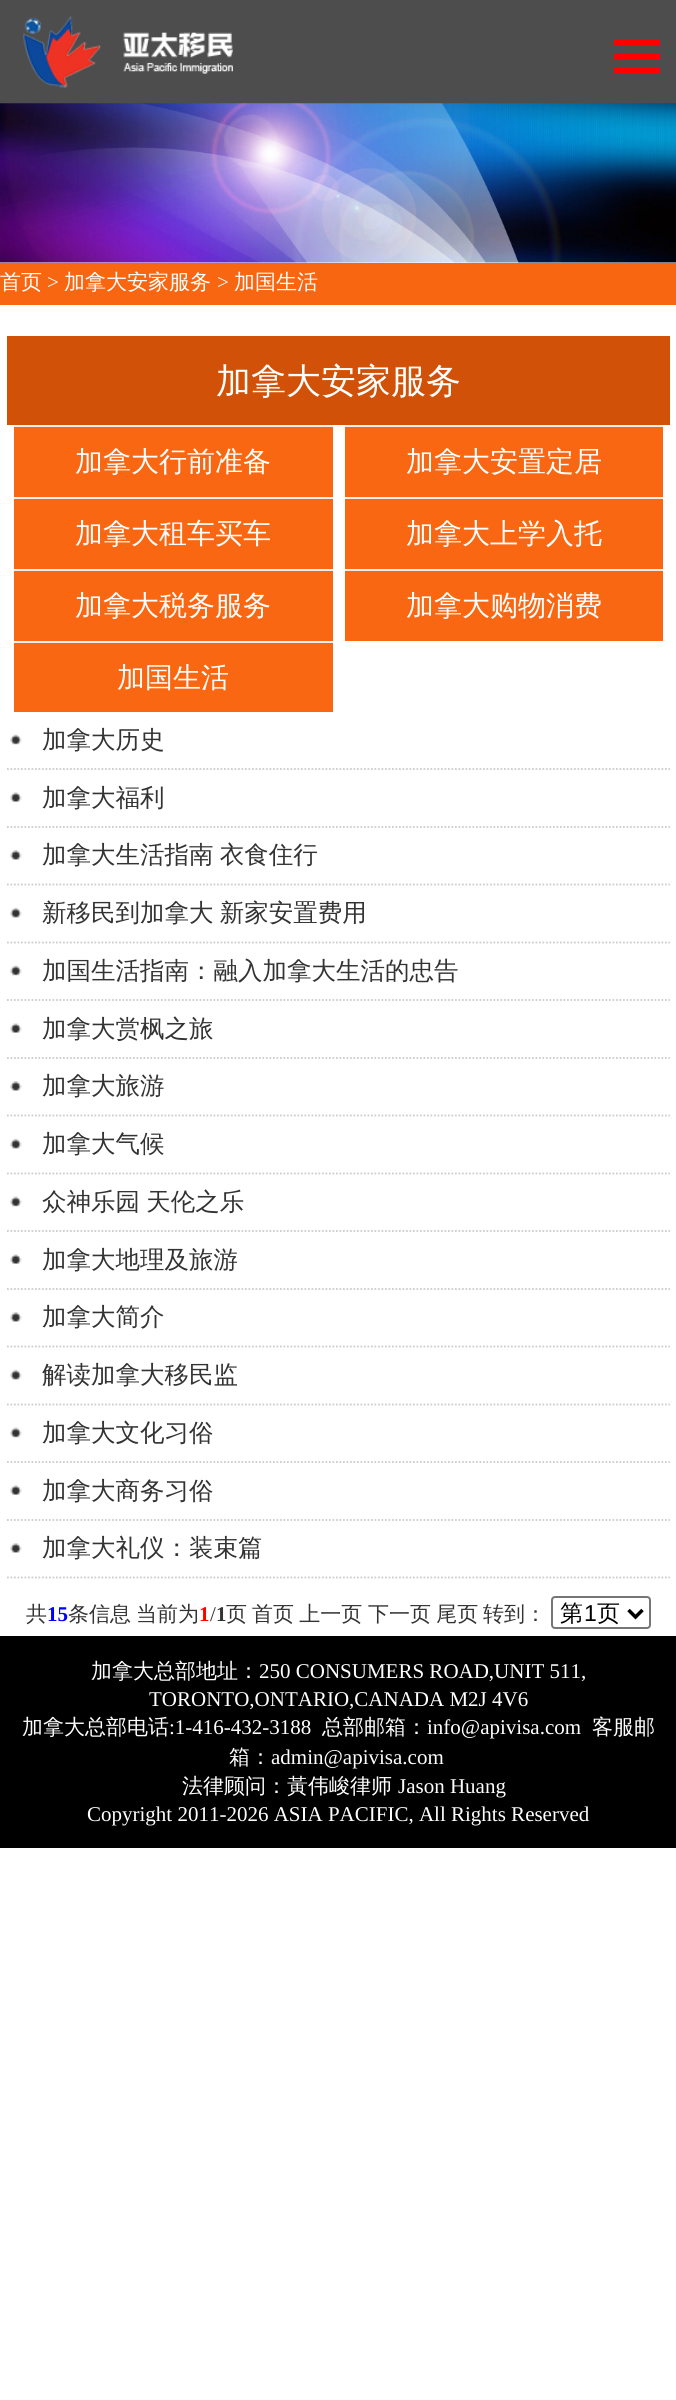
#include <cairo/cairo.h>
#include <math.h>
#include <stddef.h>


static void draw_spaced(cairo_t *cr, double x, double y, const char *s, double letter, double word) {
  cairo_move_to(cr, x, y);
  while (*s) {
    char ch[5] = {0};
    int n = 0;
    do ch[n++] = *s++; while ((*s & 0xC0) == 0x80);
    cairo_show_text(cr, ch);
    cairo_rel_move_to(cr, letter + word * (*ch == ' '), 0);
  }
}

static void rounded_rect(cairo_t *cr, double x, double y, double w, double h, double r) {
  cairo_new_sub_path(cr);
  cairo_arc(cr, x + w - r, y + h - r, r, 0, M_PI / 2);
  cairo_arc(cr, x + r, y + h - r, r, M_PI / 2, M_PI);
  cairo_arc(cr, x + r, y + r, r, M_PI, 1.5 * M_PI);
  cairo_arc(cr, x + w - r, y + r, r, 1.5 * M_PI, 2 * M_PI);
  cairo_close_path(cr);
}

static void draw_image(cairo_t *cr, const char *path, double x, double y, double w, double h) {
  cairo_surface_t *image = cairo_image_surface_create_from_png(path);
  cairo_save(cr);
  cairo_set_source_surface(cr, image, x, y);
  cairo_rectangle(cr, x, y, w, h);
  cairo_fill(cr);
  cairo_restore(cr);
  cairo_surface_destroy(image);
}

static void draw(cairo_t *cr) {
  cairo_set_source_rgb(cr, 1, 1, 1);
  cairo_paint(cr);
  cairo_set_source_rgb(cr, 77 / 255.0, 77 / 255.0, 77 / 255.0);
  cairo_rectangle(cr, 0, 0, 676, 104);
  cairo_fill(cr);
  draw_image(cr, "images/1.png", 23, 16, 210, 72);
  cairo_set_source_rgb(cr, 1, 0, 0);
  cairo_rectangle(cr, 614, 40, 46, 5);
  cairo_fill(cr);
  cairo_rectangle(cr, 614, 54, 46, 5);
  cairo_fill(cr);
  cairo_rectangle(cr, 614, 68, 46, 5);
  cairo_fill(cr);
  draw_image(cr, "images/2.png", 0, 103, 676, 160);
  cairo_set_source_rgb(cr, 249 / 255.0, 102 / 255.0, 17 / 255.0);
  cairo_rectangle(cr, 0, 263, 676, 42);
  cairo_fill(cr);
  cairo_set_source_rgb(cr, 208 / 255.0, 81 / 255.0, 7 / 255.0);
  cairo_rectangle(cr, 7, 336, 663, 89);
  cairo_fill(cr);
  cairo_set_source_rgb(cr, 249 / 255.0, 103 / 255.0, 18 / 255.0);
  cairo_rectangle(cr, 14, 427, 319, 70);
  cairo_fill(cr);
  cairo_set_source_rgb(cr, 238 / 255.0, 238 / 255.0, 238 / 255.0);
  cairo_rectangle(cr, 14, 425, 319, 2);
  cairo_fill(cr);
  cairo_set_source_rgb(cr, 249 / 255.0, 103 / 255.0, 18 / 255.0);
  cairo_rectangle(cr, 345, 427, 318, 70);
  cairo_fill(cr);
  cairo_set_source_rgb(cr, 238 / 255.0, 238 / 255.0, 238 / 255.0);
  cairo_rectangle(cr, 345, 425, 318, 2);
  cairo_fill(cr);
  cairo_set_source_rgb(cr, 249 / 255.0, 103 / 255.0, 18 / 255.0);
  cairo_rectangle(cr, 14, 499, 319, 70);
  cairo_fill(cr);
  cairo_set_source_rgb(cr, 238 / 255.0, 238 / 255.0, 238 / 255.0);
  cairo_rectangle(cr, 14, 497, 319, 2);
  cairo_fill(cr);
  cairo_set_source_rgb(cr, 249 / 255.0, 103 / 255.0, 18 / 255.0);
  cairo_rectangle(cr, 345, 499, 318, 70);
  cairo_fill(cr);
  cairo_set_source_rgb(cr, 238 / 255.0, 238 / 255.0, 238 / 255.0);
  cairo_rectangle(cr, 345, 497, 318, 2);
  cairo_fill(cr);
  cairo_set_source_rgb(cr, 249 / 255.0, 103 / 255.0, 18 / 255.0);
  cairo_rectangle(cr, 14, 571, 319, 70);
  cairo_fill(cr);
  cairo_set_source_rgb(cr, 238 / 255.0, 238 / 255.0, 238 / 255.0);
  cairo_rectangle(cr, 14, 569, 319, 2);
  cairo_fill(cr);
  cairo_set_source_rgb(cr, 249 / 255.0, 103 / 255.0, 18 / 255.0);
  cairo_rectangle(cr, 345, 571, 318, 70);
  cairo_fill(cr);
  cairo_set_source_rgb(cr, 238 / 255.0, 238 / 255.0, 238 / 255.0);
  cairo_rectangle(cr, 345, 569, 318, 2);
  cairo_fill(cr);
  cairo_set_source_rgb(cr, 249 / 255.0, 103 / 255.0, 18 / 255.0);
  cairo_rectangle(cr, 14, 643, 319, 69);
  cairo_fill(cr);
  cairo_set_source_rgb(cr, 238 / 255.0, 238 / 255.0, 238 / 255.0);
  cairo_rectangle(cr, 14, 641, 319, 2);
  cairo_fill(cr);
  draw_image(cr, "images/3.png", 10, 734, 12, 11);
  cairo_new_path(cr);
  cairo_move_to(cr, 7, 769);
  cairo_line_to(cr, 670, 769);
  cairo_set_source_rgb(cr, 204 / 255.0, 204 / 255.0, 204 / 255.0);
  cairo_set_line_width(cr, 1.8);
  cairo_set_dash(cr, (double[]){1.75, 1.75}, 2, 0);
  cairo_stroke(cr);
  draw_image(cr, "images/4.png", 10, 792, 12, 10);
  cairo_new_path(cr);
  cairo_move_to(cr, 7, 827);
  cairo_line_to(cr, 670, 827);
  cairo_stroke(cr);
  draw_image(cr, "images/5.png", 10, 850, 12, 10);
  cairo_new_path(cr);
  cairo_move_to(cr, 7, 884.5);
  cairo_line_to(cr, 670, 884.5);
  cairo_stroke(cr);
  draw_image(cr, "images/6.png", 10, 907, 12, 11);
  cairo_new_path(cr);
  cairo_move_to(cr, 7, 942.5);
  cairo_line_to(cr, 670, 942.5);
  cairo_stroke(cr);
  draw_image(cr, "images/3.png", 10, 965, 12, 11);
  cairo_new_path(cr);
  cairo_move_to(cr, 7, 1000);
  cairo_line_to(cr, 670, 1000);
  cairo_stroke(cr);
  draw_image(cr, "images/4.png", 10, 1023, 12, 10);
  cairo_new_path(cr);
  cairo_move_to(cr, 7, 1058);
  cairo_line_to(cr, 670, 1058);
  cairo_stroke(cr);
  draw_image(cr, "images/5.png", 10, 1081, 12, 10);
  cairo_new_path(cr);
  cairo_move_to(cr, 7, 1115.5);
  cairo_line_to(cr, 670, 1115.5);
  cairo_stroke(cr);
  draw_image(cr, "images/6.png", 10, 1138, 12, 11);
  cairo_new_path(cr);
  cairo_move_to(cr, 7, 1173.5);
  cairo_line_to(cr, 670, 1173.5);
  cairo_stroke(cr);
  draw_image(cr, "images/3.png", 10, 1196, 12, 11);
  cairo_new_path(cr);
  cairo_move_to(cr, 7, 1231);
  cairo_line_to(cr, 670, 1231);
  cairo_stroke(cr);
  draw_image(cr, "images/4.png", 10, 1254, 12, 10);
  cairo_new_path(cr);
  cairo_move_to(cr, 7, 1289);
  cairo_line_to(cr, 670, 1289);
  cairo_stroke(cr);
  draw_image(cr, "images/5.png", 10, 1312, 12, 10);
  cairo_new_path(cr);
  cairo_move_to(cr, 7, 1346.5);
  cairo_line_to(cr, 670, 1346.5);
  cairo_stroke(cr);
  draw_image(cr, "images/6.png", 10, 1369, 12, 11);
  cairo_new_path(cr);
  cairo_move_to(cr, 7, 1404.5);
  cairo_line_to(cr, 670, 1404.5);
  cairo_stroke(cr);
  draw_image(cr, "images/3.png", 10, 1427, 12, 11);
  cairo_new_path(cr);
  cairo_move_to(cr, 7, 1462);
  cairo_line_to(cr, 670, 1462);
  cairo_stroke(cr);
  draw_image(cr, "images/4.png", 10, 1485, 12, 10);
  cairo_new_path(cr);
  cairo_move_to(cr, 7, 1520);
  cairo_line_to(cr, 670, 1520);
  cairo_stroke(cr);
  draw_image(cr, "images/5.png", 10, 1543, 12, 10);
  cairo_new_path(cr);
  cairo_move_to(cr, 7, 1577.5);
  cairo_line_to(cr, 670, 1577.5);
  cairo_stroke(cr);
  rounded_rect(cr, 552, 1597, 98, 31, 3);
  cairo_set_source_rgb(cr, 118 / 255.0, 118 / 255.0, 118 / 255.0);
  cairo_set_line_width(cr, 2);
  cairo_set_dash(cr, NULL, 0, 0);
  cairo_stroke(cr);
  cairo_new_path(cr);
  cairo_move_to(cr, 628.5, 1610);
  cairo_line_to(cr, 635.5, 1617);
  cairo_line_to(cr, 642.5, 1610);
  cairo_set_source_rgb(cr, 0, 0, 0);
  cairo_set_line_width(cr, 3.5);
  cairo_stroke(cr);
  cairo_rectangle(cr, 0, 1636, 676, 212);
  cairo_fill(cr);
  cairo_select_font_face(cr, "WenQuanYi Zen Hei Medium", CAIRO_FONT_SLANT_NORMAL, CAIRO_FONT_WEIGHT_NORMAL);
  cairo_set_font_size(cr, 21);
  cairo_set_source_rgb(cr, 1, 1, 1);
  cairo_move_to(cr, 0, 289);
  cairo_show_text(cr, "首页");
  cairo_select_font_face(cr, "Liberation Serif", CAIRO_FONT_SLANT_NORMAL, CAIRO_FONT_WEIGHT_NORMAL);
  cairo_move_to(cr, 47, 289);
  cairo_show_text(cr, ">");
  cairo_select_font_face(cr, "WenQuanYi Zen Hei Medium", CAIRO_FONT_SLANT_NORMAL, CAIRO_FONT_WEIGHT_NORMAL);
  cairo_move_to(cr, 64, 289);
  cairo_show_text(cr, "加拿大安家服务");
  cairo_select_font_face(cr, "Liberation Serif", CAIRO_FONT_SLANT_NORMAL, CAIRO_FONT_WEIGHT_NORMAL);
  cairo_move_to(cr, 217, 289);
  cairo_show_text(cr, ">");
  cairo_select_font_face(cr, "WenQuanYi Zen Hei Medium", CAIRO_FONT_SLANT_NORMAL, CAIRO_FONT_WEIGHT_NORMAL);
  cairo_move_to(cr, 234, 289);
  cairo_show_text(cr, "加国生活");
  cairo_set_font_size(cr, 35);
  cairo_move_to(cr, 216, 393);
  cairo_show_text(cr, "加拿大安家服务");
  cairo_set_font_size(cr, 28);
  cairo_move_to(cr, 75, 471);
  cairo_show_text(cr, "加拿大行前准备");
  cairo_move_to(cr, 406, 471);
  cairo_show_text(cr, "加拿大安置定居");
  cairo_move_to(cr, 75, 543);
  cairo_show_text(cr, "加拿大租车买车");
  cairo_move_to(cr, 406, 543);
  cairo_show_text(cr, "加拿大上学入托");
  cairo_move_to(cr, 75, 615);
  cairo_show_text(cr, "加拿大税务服务");
  cairo_move_to(cr, 406, 615);
  cairo_show_text(cr, "加拿大购物消费");
  cairo_move_to(cr, 117, 687);
  cairo_show_text(cr, "加国生活");
  cairo_set_font_size(cr, 24.5);
  cairo_set_source_rgb(cr, 51 / 255.0, 51 / 255.0, 51 / 255.0);
  cairo_move_to(cr, 42, 748);
  cairo_show_text(cr, "加拿大历史");
  cairo_move_to(cr, 42, 806);
  cairo_show_text(cr, "加拿大福利");
  draw_spaced(cr, 42, 863, "加拿大生活指南 衣食住行", 0, -1);
  draw_spaced(cr, 42, 921, "新移民到加拿大 新家安置费用", 0, -1);
  cairo_move_to(cr, 42, 979);
  cairo_show_text(cr, "加国生活指南：融入加拿大生活的忠告");
  cairo_move_to(cr, 42, 1037);
  cairo_show_text(cr, "加拿大赏枫之旅");
  cairo_move_to(cr, 42, 1094);
  cairo_show_text(cr, "加拿大旅游");
  cairo_move_to(cr, 42, 1152);
  cairo_show_text(cr, "加拿大气候");
  draw_spaced(cr, 42, 1210, "众神乐园 天伦之乐", 0, -1);
  cairo_move_to(cr, 42, 1268);
  cairo_show_text(cr, "加拿大地理及旅游");
  cairo_move_to(cr, 42, 1325);
  cairo_show_text(cr, "加拿大简介");
  cairo_move_to(cr, 42, 1383);
  cairo_show_text(cr, "解读加拿大移民监");
  cairo_move_to(cr, 42, 1441);
  cairo_show_text(cr, "加拿大文化习俗");
  cairo_move_to(cr, 42, 1499);
  cairo_show_text(cr, "加拿大商务习俗");
  cairo_move_to(cr, 42, 1556);
  cairo_show_text(cr, "加拿大礼仪：装束篇");
  cairo_set_font_size(cr, 21);
  cairo_move_to(cr, 26, 1621);
  cairo_show_text(cr, "共");
  cairo_select_font_face(cr, "Liberation Serif", CAIRO_FONT_SLANT_NORMAL, CAIRO_FONT_WEIGHT_BOLD);
  cairo_set_source_rgb(cr, 0, 0, 1);
  cairo_move_to(cr, 47, 1621);
  cairo_show_text(cr, "15");
  cairo_select_font_face(cr, "WenQuanYi Zen Hei Medium", CAIRO_FONT_SLANT_NORMAL, CAIRO_FONT_WEIGHT_NORMAL);
  cairo_set_source_rgb(cr, 51 / 255.0, 51 / 255.0, 51 / 255.0);
  cairo_move_to(cr, 68, 1621);
  cairo_show_text(cr, "条信息");
  cairo_move_to(cr, 136, 1621);
  cairo_show_text(cr, "当前为");
  cairo_select_font_face(cr, "Liberation Serif", CAIRO_FONT_SLANT_NORMAL, CAIRO_FONT_WEIGHT_BOLD);
  cairo_set_source_rgb(cr, 1, 0, 0);
  cairo_move_to(cr, 199, 1621);
  cairo_show_text(cr, "1");
  cairo_select_font_face(cr, "Liberation Serif", CAIRO_FONT_SLANT_NORMAL, CAIRO_FONT_WEIGHT_NORMAL);
  cairo_set_source_rgb(cr, 51 / 255.0, 51 / 255.0, 51 / 255.0);
  cairo_move_to(cr, 210, 1621);
  cairo_show_text(cr, "/");
  cairo_select_font_face(cr, "Liberation Serif", CAIRO_FONT_SLANT_NORMAL, CAIRO_FONT_WEIGHT_BOLD);
  cairo_move_to(cr, 216, 1621);
  cairo_show_text(cr, "1");
  cairo_select_font_face(cr, "WenQuanYi Zen Hei Medium", CAIRO_FONT_SLANT_NORMAL, CAIRO_FONT_WEIGHT_NORMAL);
  cairo_move_to(cr, 226, 1621);
  cairo_show_text(cr, "页");
  draw_spaced(cr, 252, 1621, "首页 上一页", 0, -1);
  draw_spaced(cr, 368, 1621, "下一页 尾页", 0, -1);
  cairo_move_to(cr, 483, 1621);
  cairo_show_text(cr, "转到：");
  cairo_set_font_size(cr, 23);
  cairo_set_source_rgb(cr, 0, 0, 0);
  cairo_move_to(cr, 560, 1621);
  cairo_show_text(cr, "第");
  cairo_select_font_face(cr, "Liberation Sans", CAIRO_FONT_SLANT_NORMAL, CAIRO_FONT_WEIGHT_NORMAL);
  cairo_move_to(cr, 584, 1621);
  cairo_show_text(cr, "1");
  cairo_select_font_face(cr, "WenQuanYi Zen Hei Medium", CAIRO_FONT_SLANT_NORMAL, CAIRO_FONT_WEIGHT_NORMAL);
  cairo_move_to(cr, 597, 1621);
  cairo_show_text(cr, "页");
  cairo_set_font_size(cr, 21);
  cairo_set_source_rgb(cr, 1, 1, 1);
  cairo_move_to(cr, 91, 1678);
  cairo_show_text(cr, "加拿大总部地址：");
  cairo_select_font_face(cr, "Liberation Serif", CAIRO_FONT_SLANT_NORMAL, CAIRO_FONT_WEIGHT_NORMAL);
  cairo_move_to(cr, 259, 1678);
  cairo_show_text(cr, "250 CONSUMERS ROAD,UNIT 511,");
  cairo_move_to(cr, 149, 1706);
  cairo_show_text(cr, "TORONTO,ONTARIO,CANADA M2J 4V6");
  cairo_select_font_face(cr, "WenQuanYi Zen Hei Medium", CAIRO_FONT_SLANT_NORMAL, CAIRO_FONT_WEIGHT_NORMAL);
  cairo_move_to(cr, 22, 1734);
  cairo_show_text(cr, "加拿大总部电话");
  cairo_select_font_face(cr, "Liberation Serif", CAIRO_FONT_SLANT_NORMAL, CAIRO_FONT_WEIGHT_NORMAL);
  cairo_move_to(cr, 169, 1734);
  cairo_show_text(cr, ":1-416-432-3188");
  cairo_select_font_face(cr, "WenQuanYi Zen Hei Medium", CAIRO_FONT_SLANT_NORMAL, CAIRO_FONT_WEIGHT_NORMAL);
  cairo_move_to(cr, 322, 1734);
  cairo_show_text(cr, "总部邮箱：");
  cairo_select_font_face(cr, "Liberation Serif", CAIRO_FONT_SLANT_NORMAL, CAIRO_FONT_WEIGHT_NORMAL);
  cairo_move_to(cr, 427, 1734);
  cairo_show_text(cr, "info@apivisa.com");
  cairo_select_font_face(cr, "WenQuanYi Zen Hei Medium", CAIRO_FONT_SLANT_NORMAL, CAIRO_FONT_WEIGHT_NORMAL);
  cairo_move_to(cr, 592, 1734);
  cairo_show_text(cr, "客服邮");
  cairo_move_to(cr, 229, 1764);
  cairo_show_text(cr, "箱：");
  cairo_select_font_face(cr, "Liberation Serif", CAIRO_FONT_SLANT_NORMAL, CAIRO_FONT_WEIGHT_NORMAL);
  cairo_move_to(cr, 271, 1764);
  cairo_show_text(cr, "admin@apivisa.com");
  cairo_select_font_face(cr, "WenQuanYi Zen Hei Medium", CAIRO_FONT_SLANT_NORMAL, CAIRO_FONT_WEIGHT_NORMAL);
  cairo_move_to(cr, 182, 1793);
  cairo_show_text(cr, "法律顾问：黃伟峻律师");
  cairo_select_font_face(cr, "Liberation Serif", CAIRO_FONT_SLANT_NORMAL, CAIRO_FONT_WEIGHT_NORMAL);
  cairo_move_to(cr, 398, 1793);
  cairo_show_text(cr, "Jason Huang");
  cairo_move_to(cr, 87, 1821);
  cairo_show_text(cr, "Copyright 2011-2026 ASIA PACIFIC, All Rights Reserved");
}

int main(void) {
  cairo_surface_t *surface = cairo_image_surface_create(CAIRO_FORMAT_RGB24, 676, 2400);
  cairo_t *cr = cairo_create(surface);
  cairo_font_options_t *options = cairo_font_options_create();
  cairo_font_options_set_hint_metrics(options, CAIRO_HINT_METRICS_OFF);
  cairo_font_options_set_hint_style(options, CAIRO_HINT_STYLE_NONE);
  cairo_set_font_options(cr, options);
  cairo_set_miter_limit(cr, 4);
  draw(cr);
  cairo_surface_write_to_png(surface, "out.png");
  cairo_font_options_destroy(options);
  cairo_destroy(cr);
  cairo_surface_destroy(surface);
  return 0;
}
